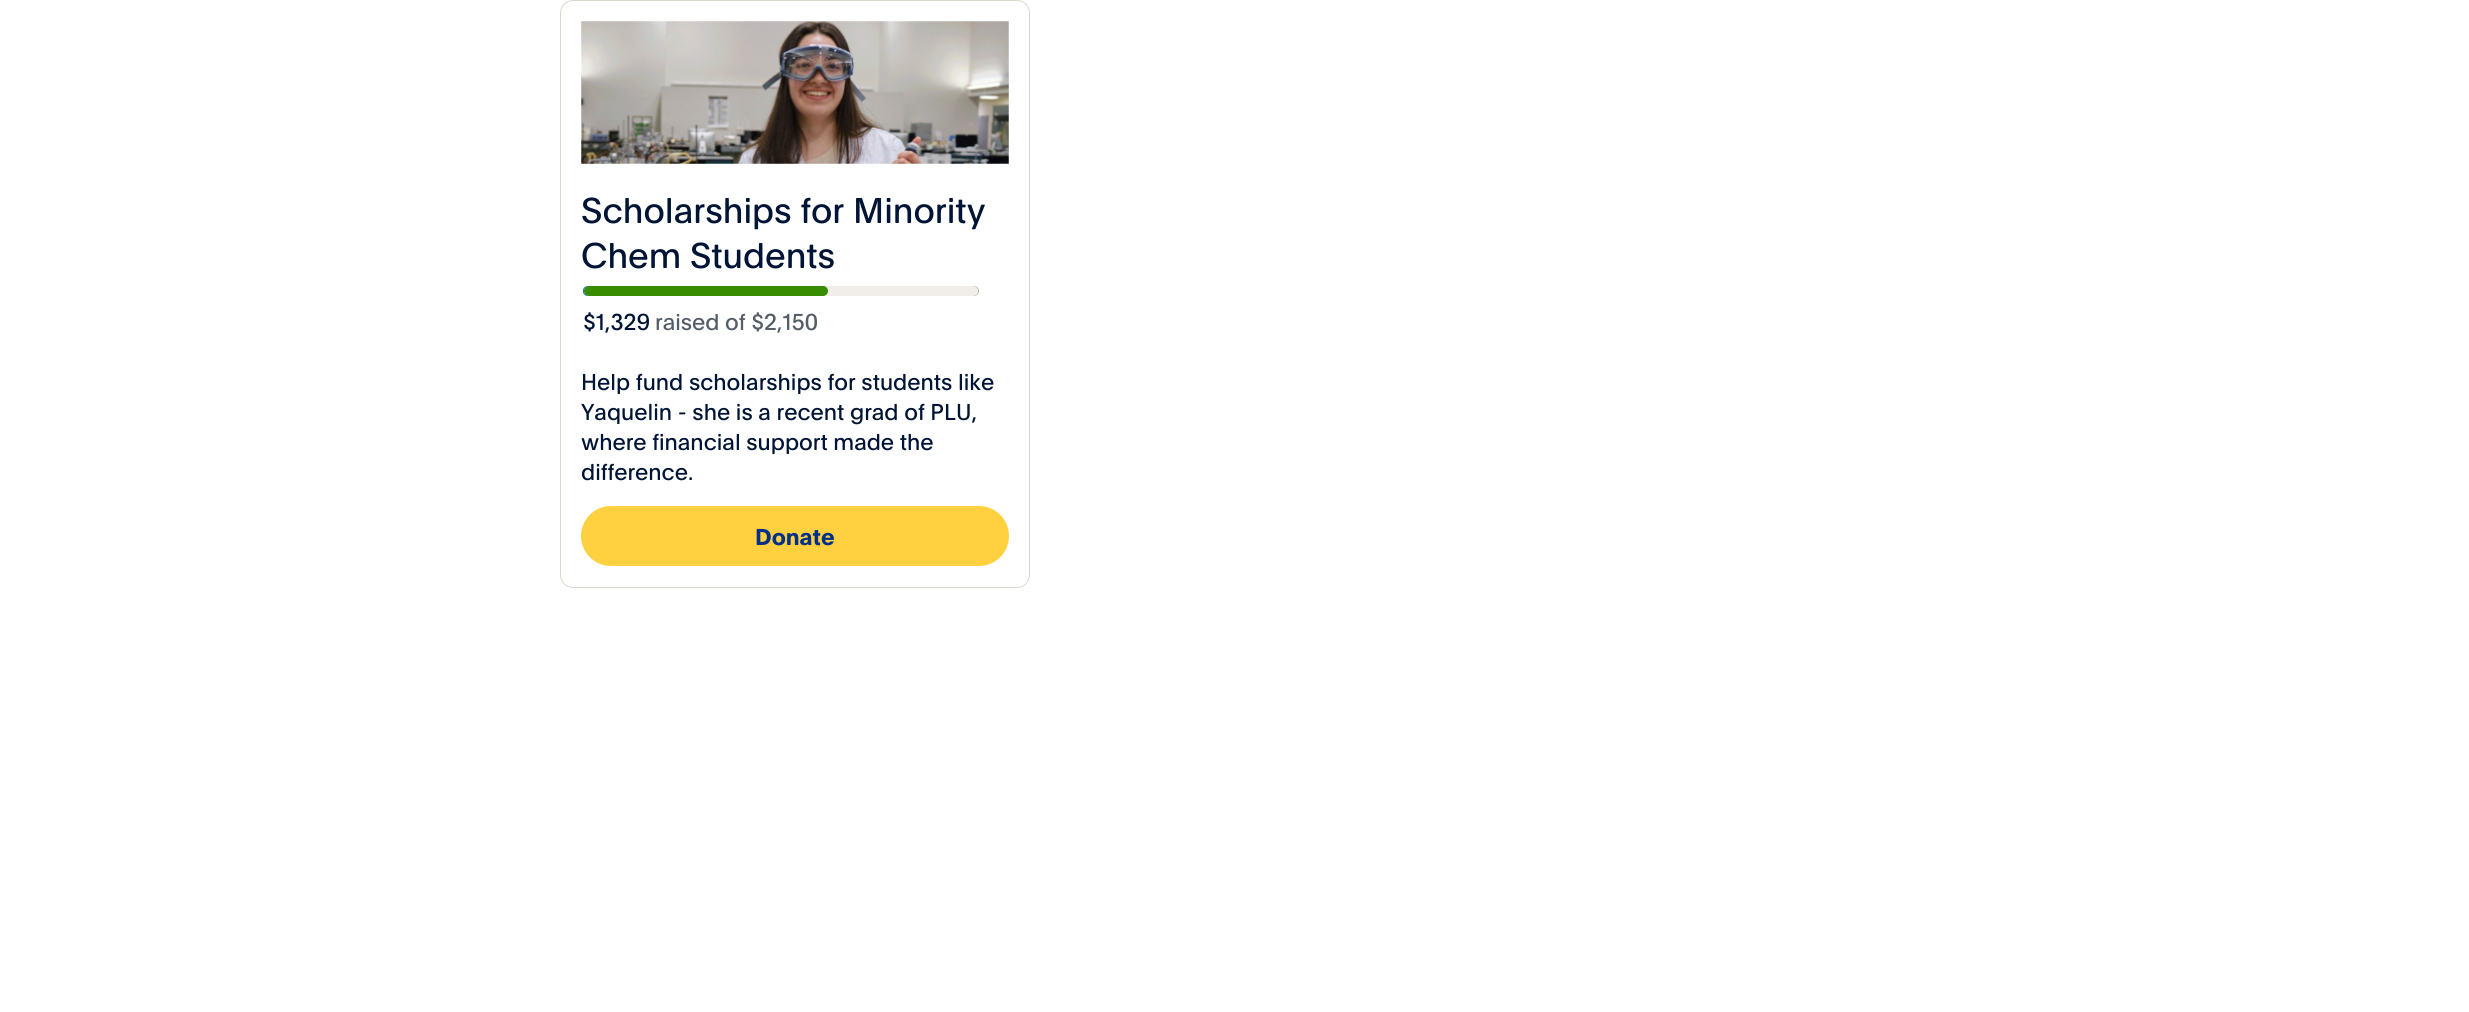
#include <cairo/cairo.h>
#include <math.h>
#include <stddef.h>


static void rounded_rect(cairo_t *cr, double x, double y, double w, double h, double r) {
  cairo_new_sub_path(cr);
  cairo_arc(cr, x + w - r, y + h - r, r, 0, M_PI / 2);
  cairo_arc(cr, x + r, y + h - r, r, M_PI / 2, M_PI);
  cairo_arc(cr, x + r, y + r, r, M_PI, 1.5 * M_PI);
  cairo_arc(cr, x + w - r, y + r, r, 1.5 * M_PI, 2 * M_PI);
  cairo_close_path(cr);
}

static void draw_image(cairo_t *cr, const char *path, double x, double y, double w, double h) {
  cairo_surface_t *image = cairo_image_surface_create_from_png(path);
  cairo_save(cr);
  cairo_set_source_surface(cr, image, x, y);
  cairo_rectangle(cr, x, y, w, h);
  cairo_fill(cr);
  cairo_restore(cr);
  cairo_surface_destroy(image);
}

static void draw(cairo_t *cr) {
  cairo_set_source_rgb(cr, 1, 1, 1);
  cairo_paint(cr);
  rounded_rect(cr, 560.5, 0.5, 469, 587, 12.5);
  cairo_set_source_rgb(cr, 219 / 255.0, 216 / 255.0, 208 / 255.0);
  cairo_set_line_width(cr, 1);
  cairo_stroke(cr);
  draw_image(cr, "images/1.png", 581, 21, 428, 143);
  rounded_rect(cr, 583.5, 286.5, 395, 9, 4.5);
  cairo_set_source_rgb(cr, 178 / 255.0, 178 / 255.0, 178 / 255.0);
  cairo_stroke(cr);
  cairo_set_source_rgb(cr, 0, 117 / 255.0, 1);
  cairo_new_path(cr);
  cairo_move_to(cr, 588, 286);
  cairo_line_to(cr, 828, 286);
  cairo_line_to(cr, 828, 296);
  cairo_line_to(cr, 588, 296);
  cairo_curve_to(cr, 585, 296, 583, 294, 583, 291);
  cairo_curve_to(cr, 583, 288, 585, 286, 588, 286);
  cairo_close_path(cr);
  cairo_fill(cr);
  cairo_set_source_rgb(cr, 241 / 255.0, 237 / 255.0, 232 / 255.0);
  rounded_rect(cr, 584, 286, 394, 10, 5);
  cairo_fill(cr);
  cairo_set_source_rgb(cr, 56 / 255.0, 140 / 255.0, 0);
  rounded_rect(cr, 584, 286, 244, 10, 5);
  cairo_fill(cr);
  cairo_set_source_rgb(cr, 1, 209 / 255.0, 64 / 255.0);
  rounded_rect(cr, 582.5, 507.5, 425, 57, 28.5);
  cairo_fill_preserve(cr);
  cairo_set_line_width(cr, 3);
  cairo_stroke(cr);
  cairo_select_font_face(cr, "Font", CAIRO_FONT_SLANT_NORMAL, CAIRO_FONT_WEIGHT_NORMAL);
  cairo_set_font_size(cr, 35);
  cairo_set_source_rgb(cr, 0, 20 / 255.0, 53 / 255.0);
  cairo_move_to(cr, 581, 223);
  cairo_show_text(cr, "Scholarships for Minority");
  cairo_move_to(cr, 581, 268);
  cairo_show_text(cr, "Chem Students");
  cairo_set_font_size(cr, 22.5);
  cairo_move_to(cr, 583, 330);
  cairo_show_text(cr, "$1,329");
  cairo_set_source_rgb(cr, 84 / 255.0, 93 / 255.0, 104 / 255.0);
  cairo_move_to(cr, 655, 330);
  cairo_show_text(cr, "raised of $2,150");
  cairo_set_source_rgb(cr, 0, 20 / 255.0, 53 / 255.0);
  cairo_move_to(cr, 581, 390);
  cairo_show_text(cr, "Help fund scholarships for students like");
  cairo_move_to(cr, 581, 420);
  cairo_show_text(cr, "Yaquelin - she is a recent grad of PLU,");
  cairo_move_to(cr, 581, 450);
  cairo_show_text(cr, "where financial support made the");
  cairo_move_to(cr, 581, 480);
  cairo_show_text(cr, "difference.");
  cairo_select_font_face(cr, "Font", CAIRO_FONT_SLANT_NORMAL, CAIRO_FONT_WEIGHT_BOLD);
  cairo_set_source_rgb(cr, 0, 48 / 255.0, 135 / 255.0);
  cairo_move_to(cr, 755, 545);
  cairo_show_text(cr, "Donate");
}

int main(void) {
  cairo_surface_t *surface = cairo_image_surface_create(CAIRO_FORMAT_RGB24, 2469, 1012);
  cairo_t *cr = cairo_create(surface);
  cairo_font_options_t *options = cairo_font_options_create();
  cairo_font_options_set_hint_metrics(options, CAIRO_HINT_METRICS_OFF);
  cairo_font_options_set_hint_style(options, CAIRO_HINT_STYLE_NONE);
  cairo_set_font_options(cr, options);
  cairo_set_miter_limit(cr, 4);
  draw(cr);
  cairo_surface_write_to_png(surface, "out.png");
  cairo_font_options_destroy(options);
  cairo_destroy(cr);
  cairo_surface_destroy(surface);
  return 0;
}
